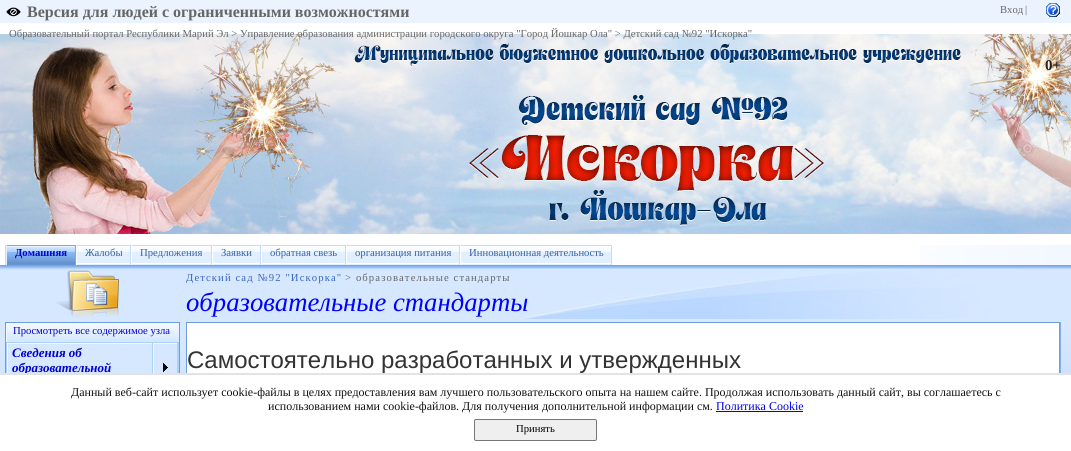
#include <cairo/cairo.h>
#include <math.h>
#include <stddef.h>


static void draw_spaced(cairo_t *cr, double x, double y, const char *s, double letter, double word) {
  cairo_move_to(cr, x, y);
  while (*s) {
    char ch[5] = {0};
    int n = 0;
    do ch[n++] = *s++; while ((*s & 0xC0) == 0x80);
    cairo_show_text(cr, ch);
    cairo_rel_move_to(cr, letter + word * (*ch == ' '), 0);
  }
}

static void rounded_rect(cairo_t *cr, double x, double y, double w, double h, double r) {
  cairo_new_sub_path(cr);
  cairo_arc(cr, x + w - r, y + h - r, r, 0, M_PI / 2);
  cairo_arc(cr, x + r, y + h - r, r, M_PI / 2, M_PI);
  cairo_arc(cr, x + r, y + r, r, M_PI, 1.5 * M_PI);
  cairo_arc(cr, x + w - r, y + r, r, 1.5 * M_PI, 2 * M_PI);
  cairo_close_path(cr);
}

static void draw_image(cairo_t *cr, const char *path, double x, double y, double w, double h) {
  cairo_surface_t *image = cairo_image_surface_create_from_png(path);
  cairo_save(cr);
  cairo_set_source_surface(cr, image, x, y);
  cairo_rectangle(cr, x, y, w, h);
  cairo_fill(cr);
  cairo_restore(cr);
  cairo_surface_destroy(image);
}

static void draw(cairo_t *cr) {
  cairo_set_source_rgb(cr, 1, 1, 1);
  cairo_paint(cr);
  cairo_set_source_rgb(cr, 235 / 255.0, 243 / 255.0, 1);
  cairo_rectangle(cr, 0, 0, 1071, 23);
  cairo_fill(cr);
  draw_image(cr, "images/1.png", 6, 7, 15, 10);
  draw_image(cr, "images/2.png", 1046, 3, 14, 14);
  draw_image(cr, "images/3.png", 0, 34, 1071, 200);
  draw_image(cr, "images/4.png", 920, 245, 151, 20);
  cairo_set_source_rgb(cr, 194 / 255.0, 220 / 255.0, 1);
  cairo_rectangle(cr, 5, 245, 1, 20);
  cairo_fill(cr);
  cairo_set_source_rgb(cr, 121 / 255.0, 167 / 255.0, 227 / 255.0);
  cairo_rectangle(cr, 6, 245, 70, 1);
  cairo_fill(cr);
  cairo_rectangle(cr, 75, 245, 1, 20);
  cairo_fill(cr);
  cairo_set_source_rgb(cr, 227 / 255.0, 239 / 255.0, 1);
  cairo_rectangle(cr, 6, 245, 1, 20);
  cairo_fill(cr);
  cairo_set_source_rgb(cr, 101 / 255.0, 147 / 255.0, 207 / 255.0);
  cairo_rectangle(cr, 7, 262, 68, 3);
  cairo_fill(cr);
  draw_image(cr, "images/5.png", 7, 246, 68, 16);
  cairo_set_source_rgb(cr, 194 / 255.0, 220 / 255.0, 1);
  cairo_rectangle(cr, 76, 245, 536, 1);
  cairo_fill(cr);
  cairo_rectangle(cr, 130, 245, 1, 20);
  cairo_fill(cr);
  cairo_set_source_rgb(cr, 1, 1, 1);
  cairo_rectangle(cr, 76, 245, 1, 1);
  cairo_fill(cr);
  cairo_set_source_rgb(cr, 226 / 255.0, 239 / 255.0, 1);
  cairo_rectangle(cr, 77, 264, 53, 1);
  cairo_fill(cr);
  draw_image(cr, "images/6.png", 77, 246, 53, 18);
  cairo_set_source_rgb(cr, 194 / 255.0, 220 / 255.0, 1);
  cairo_rectangle(cr, 211, 245, 1, 20);
  cairo_fill(cr);
  cairo_set_source_rgb(cr, 1, 1, 1);
  cairo_rectangle(cr, 131, 245, 1, 1);
  cairo_fill(cr);
  cairo_set_source_rgb(cr, 226 / 255.0, 239 / 255.0, 1);
  cairo_rectangle(cr, 132, 264, 79, 1);
  cairo_fill(cr);
  draw_image(cr, "images/7.png", 132, 246, 79, 18);
  cairo_set_source_rgb(cr, 194 / 255.0, 220 / 255.0, 1);
  cairo_rectangle(cr, 260, 245, 1, 20);
  cairo_fill(cr);
  cairo_set_source_rgb(cr, 1, 1, 1);
  cairo_rectangle(cr, 212, 245, 1, 1);
  cairo_fill(cr);
  cairo_set_source_rgb(cr, 226 / 255.0, 239 / 255.0, 1);
  cairo_rectangle(cr, 213, 264, 47, 1);
  cairo_fill(cr);
  draw_image(cr, "images/8.png", 213, 246, 47, 18);
  cairo_set_source_rgb(cr, 194 / 255.0, 220 / 255.0, 1);
  cairo_rectangle(cr, 345, 245, 1, 20);
  cairo_fill(cr);
  cairo_set_source_rgb(cr, 1, 1, 1);
  cairo_rectangle(cr, 261, 245, 1, 1);
  cairo_fill(cr);
  cairo_set_source_rgb(cr, 226 / 255.0, 239 / 255.0, 1);
  cairo_rectangle(cr, 262, 264, 83, 1);
  cairo_fill(cr);
  draw_image(cr, "images/9.png", 262, 246, 83, 18);
  cairo_set_source_rgb(cr, 194 / 255.0, 220 / 255.0, 1);
  cairo_rectangle(cr, 459, 245, 1, 20);
  cairo_fill(cr);
  cairo_set_source_rgb(cr, 1, 1, 1);
  cairo_rectangle(cr, 346, 245, 1, 1);
  cairo_fill(cr);
  cairo_set_source_rgb(cr, 226 / 255.0, 239 / 255.0, 1);
  cairo_rectangle(cr, 347, 264, 112, 1);
  cairo_fill(cr);
  draw_image(cr, "images/10.png", 347, 246, 112, 18);
  cairo_set_source_rgb(cr, 194 / 255.0, 220 / 255.0, 1);
  cairo_rectangle(cr, 611, 245, 1, 20);
  cairo_fill(cr);
  cairo_set_source_rgb(cr, 1, 1, 1);
  cairo_rectangle(cr, 460, 245, 1, 1);
  cairo_fill(cr);
  cairo_set_source_rgb(cr, 226 / 255.0, 239 / 255.0, 1);
  cairo_rectangle(cr, 461, 264, 150, 1);
  cairo_fill(cr);
  draw_image(cr, "images/11.png", 461, 246, 150, 18);
  cairo_set_source_rgb(cr, 214 / 255.0, 232 / 255.0, 1);
  cairo_rectangle(cr, 0, 270, 180, 52);
  cairo_fill(cr);
  draw_image(cr, "images/12.png", 0, 265, 180, 5);
  draw_image(cr, "images/13.png", 55, 270, 64, 48);
  cairo_rectangle(cr, 180, 265, 6, 57);
  cairo_fill(cr);
  draw_image(cr, "images/14.png", 180, 265, 6, 5);
  draw_image(cr, "images/15.png", 1060, 265, 11, 5);
  cairo_rectangle(cr, 186, 270, 885, 52);
  cairo_fill(cr);
  draw_image(cr, "images/16.png", 186, 265, 874, 5);
  draw_image(cr, "images/17.png", 518, 269, 500, 50);
  draw_image(cr, "images/18.png", 0, 322, 5, 51);
  cairo_rectangle(cr, 5.5, 322.5, 174, 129);
  cairo_set_source_rgb(cr, 111 / 255.0, 157 / 255.0, 217 / 255.0);
  cairo_set_line_width(cr, 1);
  cairo_stroke(cr);
  cairo_set_source_rgb(cr, 214 / 255.0, 232 / 255.0, 1);
  cairo_rectangle(cr, 7, 339, 172, 3);
  cairo_fill(cr);
  draw_image(cr, "images/19.png", 7, 323, 172, 16);
  cairo_set_source_rgb(cr, 242 / 255.0, 248 / 255.0, 1);
  cairo_rectangle(cr, 6, 323, 1, 19);
  cairo_fill(cr);
  cairo_set_source_rgb(cr, 173 / 255.0, 209 / 255.0, 1);
  cairo_rectangle(cr, 6, 342, 173, 1);
  cairo_fill(cr);
  cairo_rectangle(cr, 178, 342, 1, 31);
  cairo_fill(cr);
  cairo_rectangle(cr, 6, 342, 1, 31);
  cairo_fill(cr);
  cairo_set_source_rgb(cr, 214 / 255.0, 232 / 255.0, 1);
  cairo_rectangle(cr, 8, 344, 144, 29);
  cairo_fill(cr);
  cairo_set_source_rgb(cr, 242 / 255.0, 248 / 255.0, 1);
  cairo_rectangle(cr, 7, 343, 171, 1);
  cairo_fill(cr);
  cairo_set_source_rgb(cr, 173 / 255.0, 209 / 255.0, 1);
  cairo_rectangle(cr, 152, 343, 1, 30);
  cairo_fill(cr);
  cairo_set_source_rgb(cr, 242 / 255.0, 248 / 255.0, 1);
  cairo_rectangle(cr, 7, 343, 1, 30);
  cairo_fill(cr);
  cairo_set_source_rgb(cr, 214 / 255.0, 232 / 255.0, 1);
  cairo_rectangle(cr, 154, 344, 23, 29);
  cairo_fill(cr);
  cairo_set_source_rgb(cr, 173 / 255.0, 209 / 255.0, 1);
  cairo_rectangle(cr, 177, 343, 1, 30);
  cairo_fill(cr);
  cairo_set_source_rgb(cr, 242 / 255.0, 248 / 255.0, 1);
  cairo_rectangle(cr, 153, 343, 1, 30);
  cairo_fill(cr);
  draw_image(cr, "images/20.png", 163, 363, 5, 9);
  draw_image(cr, "images/21.png", 180, 322, 6, 51);
  cairo_set_source_rgb(cr, 111 / 255.0, 157 / 255.0, 217 / 255.0);
  cairo_rectangle(cr, 186, 322, 874, 1);
  cairo_fill(cr);
  cairo_rectangle(cr, 1059, 322, 1, 51);
  cairo_fill(cr);
  cairo_rectangle(cr, 186, 322, 1, 51);
  cairo_fill(cr);
  draw_image(cr, "images/22.png", 1061, 322, 10, 51);
  cairo_set_source_rgb(cr, 131 / 255.0, 176 / 255.0, 236 / 255.0);
  cairo_rectangle(cr, 1060, 322, 1, 51);
  cairo_fill(cr);
  cairo_set_source_rgb(cr, 1, 1, 1);
  cairo_rectangle(cr, 5, 375, 175, 76);
  cairo_fill(cr);
  cairo_set_source_rgb(cr, 0, 0, 238 / 255.0);
  cairo_rectangle(cr, 716, 411, 87, 1);
  cairo_fill(cr);
  cairo_set_source_rgb(cr, 239 / 255.0, 239 / 255.0, 239 / 255.0);
  rounded_rect(cr, 474.5, 419.5, 122, 21, 1.5);
  cairo_fill_preserve(cr);
  cairo_set_source_rgb(cr, 118 / 255.0, 118 / 255.0, 118 / 255.0);
  cairo_stroke(cr);
  cairo_select_font_face(cr, "Liberation Serif", CAIRO_FONT_SLANT_NORMAL, CAIRO_FONT_WEIGHT_BOLD);
  cairo_set_font_size(cr, 16);
  cairo_set_source_rgb(cr, 102 / 255.0, 102 / 255.0, 102 / 255.0);
  cairo_move_to(cr, 27, 17);
  cairo_show_text(cr, "Версия для людей с ограниченными возможностями");
  cairo_select_font_face(cr, "Liberation Serif", CAIRO_FONT_SLANT_NORMAL, CAIRO_FONT_WEIGHT_NORMAL);
  cairo_set_font_size(cr, 10.67);
  cairo_move_to(cr, 1000, 13);
  cairo_show_text(cr, "Вход");
  cairo_move_to(cr, 1025, 13);
  cairo_show_text(cr, "|");
  cairo_move_to(cr, 9, 37);
  cairo_show_text(cr, "Образовательный портал Республики Марий Эл > Управление образования администрации городского округа \"Город Йошкар Ола\" > Детский сад №92 \"Искорка\"");
  cairo_select_font_face(cr, "Liberation Serif", CAIRO_FONT_SLANT_NORMAL, CAIRO_FONT_WEIGHT_BOLD);
  cairo_set_font_size(cr, 15);
  cairo_set_source_rgb(cr, 34 / 255.0, 34 / 255.0, 34 / 255.0);
  cairo_move_to(cr, 1045, 70);
  cairo_show_text(cr, "0+");
  cairo_set_font_size(cr, 10.67);
  cairo_set_source_rgb(cr, 0, 0, 204 / 255.0);
  cairo_move_to(cr, 15, 256);
  cairo_show_text(cr, "Домашняя");
  cairo_select_font_face(cr, "Liberation Serif", CAIRO_FONT_SLANT_NORMAL, CAIRO_FONT_WEIGHT_NORMAL);
  cairo_set_source_rgb(cr, 55 / 255.0, 100 / 255.0, 160 / 255.0);
  cairo_move_to(cr, 85, 256);
  cairo_show_text(cr, "Жалобы");
  cairo_move_to(cr, 140, 256);
  cairo_show_text(cr, "Предложения");
  cairo_move_to(cr, 221, 256);
  cairo_show_text(cr, "Заявки");
  cairo_move_to(cr, 270, 256);
  cairo_show_text(cr, "обратная свезь");
  cairo_move_to(cr, 355, 256);
  cairo_show_text(cr, "организация питания");
  cairo_move_to(cr, 469, 256);
  cairo_show_text(cr, "Инновационная деятельность");
  cairo_set_source_rgb(cr, 57 / 255.0, 102 / 255.0, 191 / 255.0);
  draw_spaced(cr, 186, 281, "Детский сад №92 \"Искорка\"", 1.1, 0);
  cairo_set_source_rgb(cr, 102 / 255.0, 102 / 255.0, 102 / 255.0);
  draw_spaced(cr, 345, 281, "> образовательные стандарты", 1.1, 0);
  cairo_select_font_face(cr, "Liberation Serif", CAIRO_FONT_SLANT_ITALIC, CAIRO_FONT_WEIGHT_NORMAL);
  cairo_set_font_size(cr, 26.7);
  cairo_set_source_rgb(cr, 0, 0, 1);
  cairo_move_to(cr, 186, 311);
  cairo_show_text(cr, "образовательные стандарты");
  cairo_select_font_face(cr, "Liberation Serif", CAIRO_FONT_SLANT_NORMAL, CAIRO_FONT_WEIGHT_NORMAL);
  cairo_set_font_size(cr, 10.67);
  cairo_set_source_rgb(cr, 0, 0, 204 / 255.0);
  cairo_move_to(cr, 13, 334);
  cairo_show_text(cr, "Просмотреть все содержимое узла");
  cairo_select_font_face(cr, "Liberation Serif", CAIRO_FONT_SLANT_ITALIC, CAIRO_FONT_WEIGHT_BOLD);
  cairo_set_font_size(cr, 13);
  cairo_move_to(cr, 12, 357);
  cairo_show_text(cr, "Сведения об");
  cairo_move_to(cr, 12, 372);
  cairo_show_text(cr, "образовательной");
  cairo_select_font_face(cr, "Liberation Sans", CAIRO_FONT_SLANT_NORMAL, CAIRO_FONT_WEIGHT_NORMAL);
  cairo_set_font_size(cr, 24);
  cairo_set_source_rgb(cr, 51 / 255.0, 51 / 255.0, 51 / 255.0);
  cairo_move_to(cr, 187, 368);
  cairo_show_text(cr, "Самостоятельно разработанных и утвержденных");
  cairo_set_source_rgb(cr, 227 / 255.0, 227 / 255.0, 227 / 255.0);
  cairo_rectangle(cr, 0, 373, 1071, 2);
  cairo_fill(cr);
  cairo_select_font_face(cr, "Liberation Serif", CAIRO_FONT_SLANT_NORMAL, CAIRO_FONT_WEIGHT_NORMAL);
  cairo_set_font_size(cr, 12);
  cairo_set_source_rgb(cr, 17 / 255.0, 17 / 255.0, 17 / 255.0);
  cairo_move_to(cr, 71, 396);
  cairo_show_text(cr, "Данный веб-сайт использует cookie-файлы в целях предоставления вам лучшего пользовательского опыта на нашем сайте. Продолжая использовать данный сайт, вы соглашаетесь с");
  cairo_move_to(cr, 268, 410);
  cairo_show_text(cr, "использованием нами cookie-файлов. Для получения дополнительной информации см.");
  cairo_set_source_rgb(cr, 0, 0, 238 / 255.0);
  cairo_move_to(cr, 716, 410);
  cairo_show_text(cr, "Политика Cookie");
  cairo_set_font_size(cr, 10.67);
  cairo_set_source_rgb(cr, 0, 0, 0);
  cairo_move_to(cr, 516, 432);
  cairo_show_text(cr, "Принять");
}

int main(void) {
  cairo_surface_t *surface = cairo_image_surface_create(CAIRO_FORMAT_RGB24, 1071, 451);
  cairo_t *cr = cairo_create(surface);
  cairo_font_options_t *options = cairo_font_options_create();
  cairo_font_options_set_hint_metrics(options, CAIRO_HINT_METRICS_OFF);
  cairo_font_options_set_hint_style(options, CAIRO_HINT_STYLE_NONE);
  cairo_set_font_options(cr, options);
  cairo_set_miter_limit(cr, 4);
  draw(cr);
  cairo_surface_write_to_png(surface, "out.png");
  cairo_font_options_destroy(options);
  cairo_destroy(cr);
  cairo_surface_destroy(surface);
  return 0;
}
